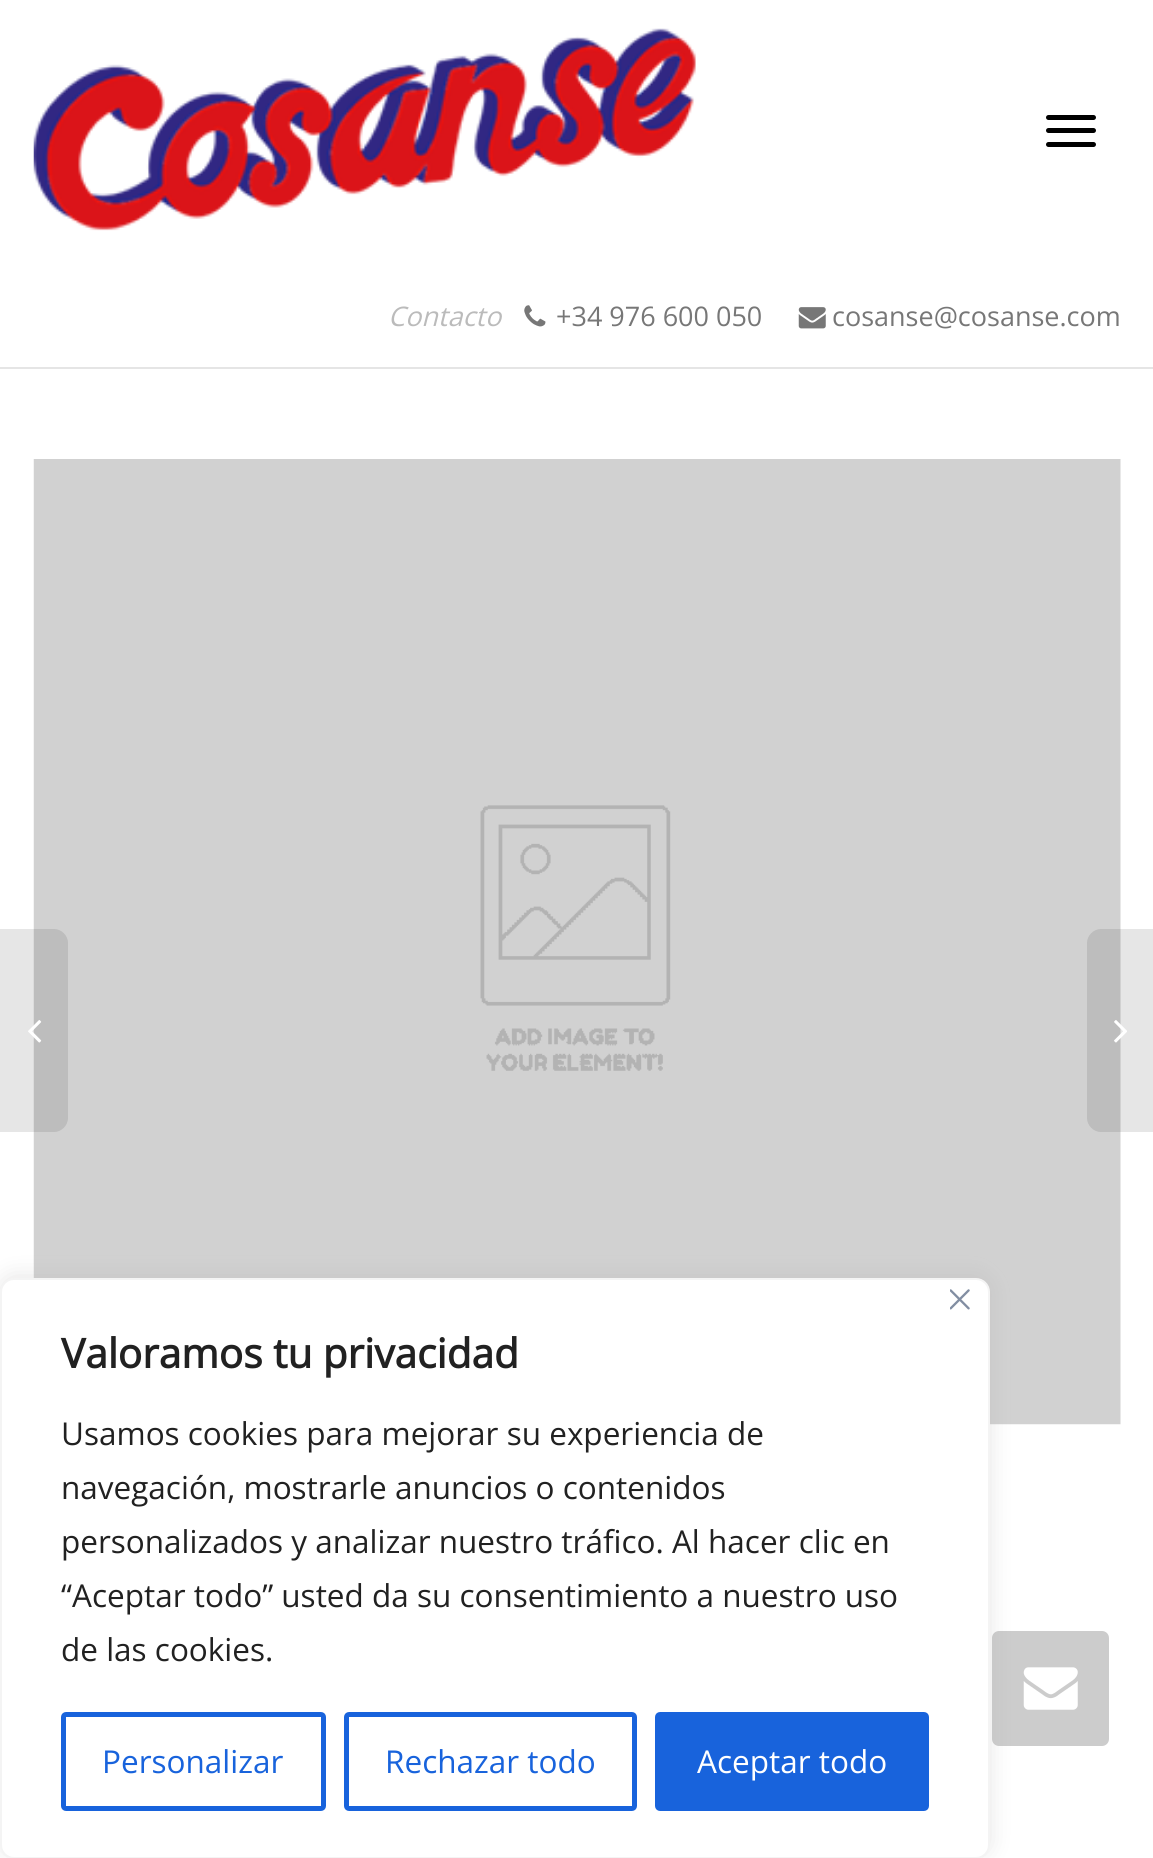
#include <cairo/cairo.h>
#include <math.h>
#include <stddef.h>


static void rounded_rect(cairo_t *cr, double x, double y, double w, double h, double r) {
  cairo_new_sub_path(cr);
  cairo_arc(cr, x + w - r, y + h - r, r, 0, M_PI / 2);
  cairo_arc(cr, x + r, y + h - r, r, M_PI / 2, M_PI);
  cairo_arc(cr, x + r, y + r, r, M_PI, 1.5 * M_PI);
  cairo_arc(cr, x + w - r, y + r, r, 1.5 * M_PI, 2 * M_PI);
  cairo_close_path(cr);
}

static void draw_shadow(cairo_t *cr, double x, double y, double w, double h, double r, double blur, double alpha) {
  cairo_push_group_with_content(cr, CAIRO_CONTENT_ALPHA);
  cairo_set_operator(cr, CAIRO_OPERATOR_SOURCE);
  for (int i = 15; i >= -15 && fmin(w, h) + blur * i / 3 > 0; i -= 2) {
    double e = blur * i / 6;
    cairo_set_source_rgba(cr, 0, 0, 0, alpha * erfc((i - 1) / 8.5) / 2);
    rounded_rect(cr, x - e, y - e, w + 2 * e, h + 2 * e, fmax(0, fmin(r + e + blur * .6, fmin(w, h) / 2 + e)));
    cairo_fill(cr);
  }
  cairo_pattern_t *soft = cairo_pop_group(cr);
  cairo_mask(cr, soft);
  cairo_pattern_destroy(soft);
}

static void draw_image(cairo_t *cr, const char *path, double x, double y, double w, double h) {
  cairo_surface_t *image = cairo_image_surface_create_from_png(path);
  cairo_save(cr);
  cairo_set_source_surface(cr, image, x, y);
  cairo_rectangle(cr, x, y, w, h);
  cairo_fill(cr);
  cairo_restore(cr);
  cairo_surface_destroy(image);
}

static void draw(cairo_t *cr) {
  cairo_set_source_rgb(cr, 1, 1, 1);
  cairo_paint(cr);
  draw_image(cr, "images/1.png", 33, 28, 663, 203);
  cairo_set_source_rgb(cr, 0, 0, 0);
  rounded_rect(cr, 1046, 115, 50, 5, 2.5);
  cairo_fill(cr);
  rounded_rect(cr, 1046, 128, 50, 5, 2.5);
  cairo_fill(cr);
  rounded_rect(cr, 1046, 142, 50, 5, 2.5);
  cairo_fill(cr);
  cairo_set_source_rgb(cr, 229 / 255.0, 229 / 255.0, 229 / 255.0);
  cairo_rectangle(cr, 0, 367, 1153, 2);
  cairo_fill(cr);
  draw_image(cr, "images/2.png", 524, 305, 22, 22);
  draw_image(cr, "images/3.png", 798, 307, 28, 22);
  draw_image(cr, "images/4.png", 33, 459, 1088, 966);
  cairo_set_source_rgba(cr, 0, 0, 0, 0.1);
  cairo_new_path(cr);
  cairo_move_to(cr, -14, 929);
  cairo_line_to(cr, 54, 929);
  cairo_curve_to(cr, 61.5, 929, 68, 935.5, 68, 943);
  cairo_line_to(cr, 68, 1118);
  cairo_curve_to(cr, 68, 1125.5, 61.5, 1132, 54, 1132);
  cairo_line_to(cr, -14, 1132);
  cairo_close_path(cr);
  cairo_fill(cr);
  draw_image(cr, "images/5.png", 28, 1020, 14, 23);
  cairo_new_path(cr);
  cairo_move_to(cr, 1101, 929);
  cairo_line_to(cr, 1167, 929);
  cairo_line_to(cr, 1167, 1132);
  cairo_line_to(cr, 1101, 1132);
  cairo_curve_to(cr, 1093.5, 1132, 1087, 1125.5, 1087, 1118);
  cairo_line_to(cr, 1087, 943);
  cairo_curve_to(cr, 1087, 935.5, 1093.5, 929, 1101, 929);
  cairo_close_path(cr);
  cairo_fill(cr);
  draw_image(cr, "images/6.png", 1114, 1020, 13, 23);
  cairo_set_source_rgb(cr, 204 / 255.0, 204 / 255.0, 204 / 255.0);
  rounded_rect(cr, 992, 1631, 117, 115, 7);
  cairo_fill(cr);
  draw_image(cr, "images/7.png", 1023, 1667, 55, 43);
  cairo_set_source_rgb(cr, 172 / 255.0, 171 / 255.0, 171 / 255.0);
  draw_shadow(cr, 0, 1276, 990, 580, 14, 11, 0.3);
  cairo_set_source_rgb(cr, 1, 1, 1);
  rounded_rect(cr, 1, 1279, 988, 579, 13);
  cairo_fill_preserve(cr);
  cairo_set_source_rgb(cr, 244 / 255.0, 244 / 255.0, 244 / 255.0);
  cairo_stroke(cr);
  draw_image(cr, "images/8.png", 950, 1289, 20, 21);
  rounded_rect(cr, 63.5, 1714.5, 260, 94, 2.5);
  cairo_set_source_rgb(cr, 24 / 255.0, 99 / 255.0, 220 / 255.0);
  cairo_set_line_width(cr, 5);
  cairo_stroke(cr);
  rounded_rect(cr, 346.5, 1714.5, 288, 94, 2.5);
  cairo_stroke(cr);
  rounded_rect(cr, 657.5, 1714.5, 269, 94, 2.5);
  cairo_fill_preserve(cr);
  cairo_stroke(cr);
  cairo_select_font_face(cr, "Open Sans", CAIRO_FONT_SLANT_ITALIC, CAIRO_FONT_WEIGHT_NORMAL);
  cairo_set_font_size(cr, 27);
  cairo_set_source_rgb(cr, 187 / 255.0, 187 / 255.0, 187 / 255.0);
  cairo_move_to(cr, 388, 326);
  cairo_show_text(cr, "Contacto");
  cairo_select_font_face(cr, "Open Sans", CAIRO_FONT_SLANT_NORMAL, CAIRO_FONT_WEIGHT_NORMAL);
  cairo_set_source_rgb(cr, 119 / 255.0, 119 / 255.0, 119 / 255.0);
  cairo_move_to(cr, 556, 326);
  cairo_show_text(cr, "+34 976 600 050");
  cairo_move_to(cr, 832, 326);
  cairo_show_text(cr, "cosanse@cosanse.com");
  cairo_select_font_face(cr, "Open Sans", CAIRO_FONT_SLANT_NORMAL, CAIRO_FONT_WEIGHT_BOLD);
  cairo_set_font_size(cr, 40.5);
  cairo_set_source_rgb(cr, 33 / 255.0, 33 / 255.0, 33 / 255.0);
  cairo_move_to(cr, 61, 1368);
  cairo_show_text(cr, "Valoramos tu privacidad");
  cairo_select_font_face(cr, "Open Sans", CAIRO_FONT_SLANT_NORMAL, CAIRO_FONT_WEIGHT_NORMAL);
  cairo_set_font_size(cr, 31.5);
  cairo_move_to(cr, 61, 1445);
  cairo_show_text(cr, "Usamos cookies para mejorar su experiencia de");
  cairo_move_to(cr, 61, 1499);
  cairo_show_text(cr, "navegación, mostrarle anuncios o contenidos");
  cairo_move_to(cr, 61, 1553);
  cairo_show_text(cr, "personalizados y analizar nuestro tráfico. Al hacer clic en");
  cairo_move_to(cr, 61, 1607);
  cairo_show_text(cr, "“Aceptar todo” usted da su consentimiento a nuestro uso");
  cairo_move_to(cr, 61, 1661);
  cairo_show_text(cr, "de las cookies.");
  cairo_set_source_rgb(cr, 24 / 255.0, 99 / 255.0, 220 / 255.0);
  cairo_move_to(cr, 102, 1773);
  cairo_show_text(cr, "Personalizar");
  cairo_move_to(cr, 385, 1773);
  cairo_show_text(cr, "Rechazar todo");
  cairo_set_source_rgb(cr, 1, 1, 1);
  cairo_move_to(cr, 697, 1773);
  cairo_show_text(cr, "Aceptar todo");
}

int main(void) {
  cairo_surface_t *surface = cairo_image_surface_create(CAIRO_FORMAT_RGB24, 1153, 1858);
  cairo_t *cr = cairo_create(surface);
  cairo_font_options_t *options = cairo_font_options_create();
  cairo_font_options_set_hint_metrics(options, CAIRO_HINT_METRICS_OFF);
  cairo_font_options_set_hint_style(options, CAIRO_HINT_STYLE_NONE);
  cairo_set_font_options(cr, options);
  cairo_set_miter_limit(cr, 4);
  draw(cr);
  cairo_surface_write_to_png(surface, "out.png");
  cairo_font_options_destroy(options);
  cairo_destroy(cr);
  cairo_surface_destroy(surface);
  return 0;
}
